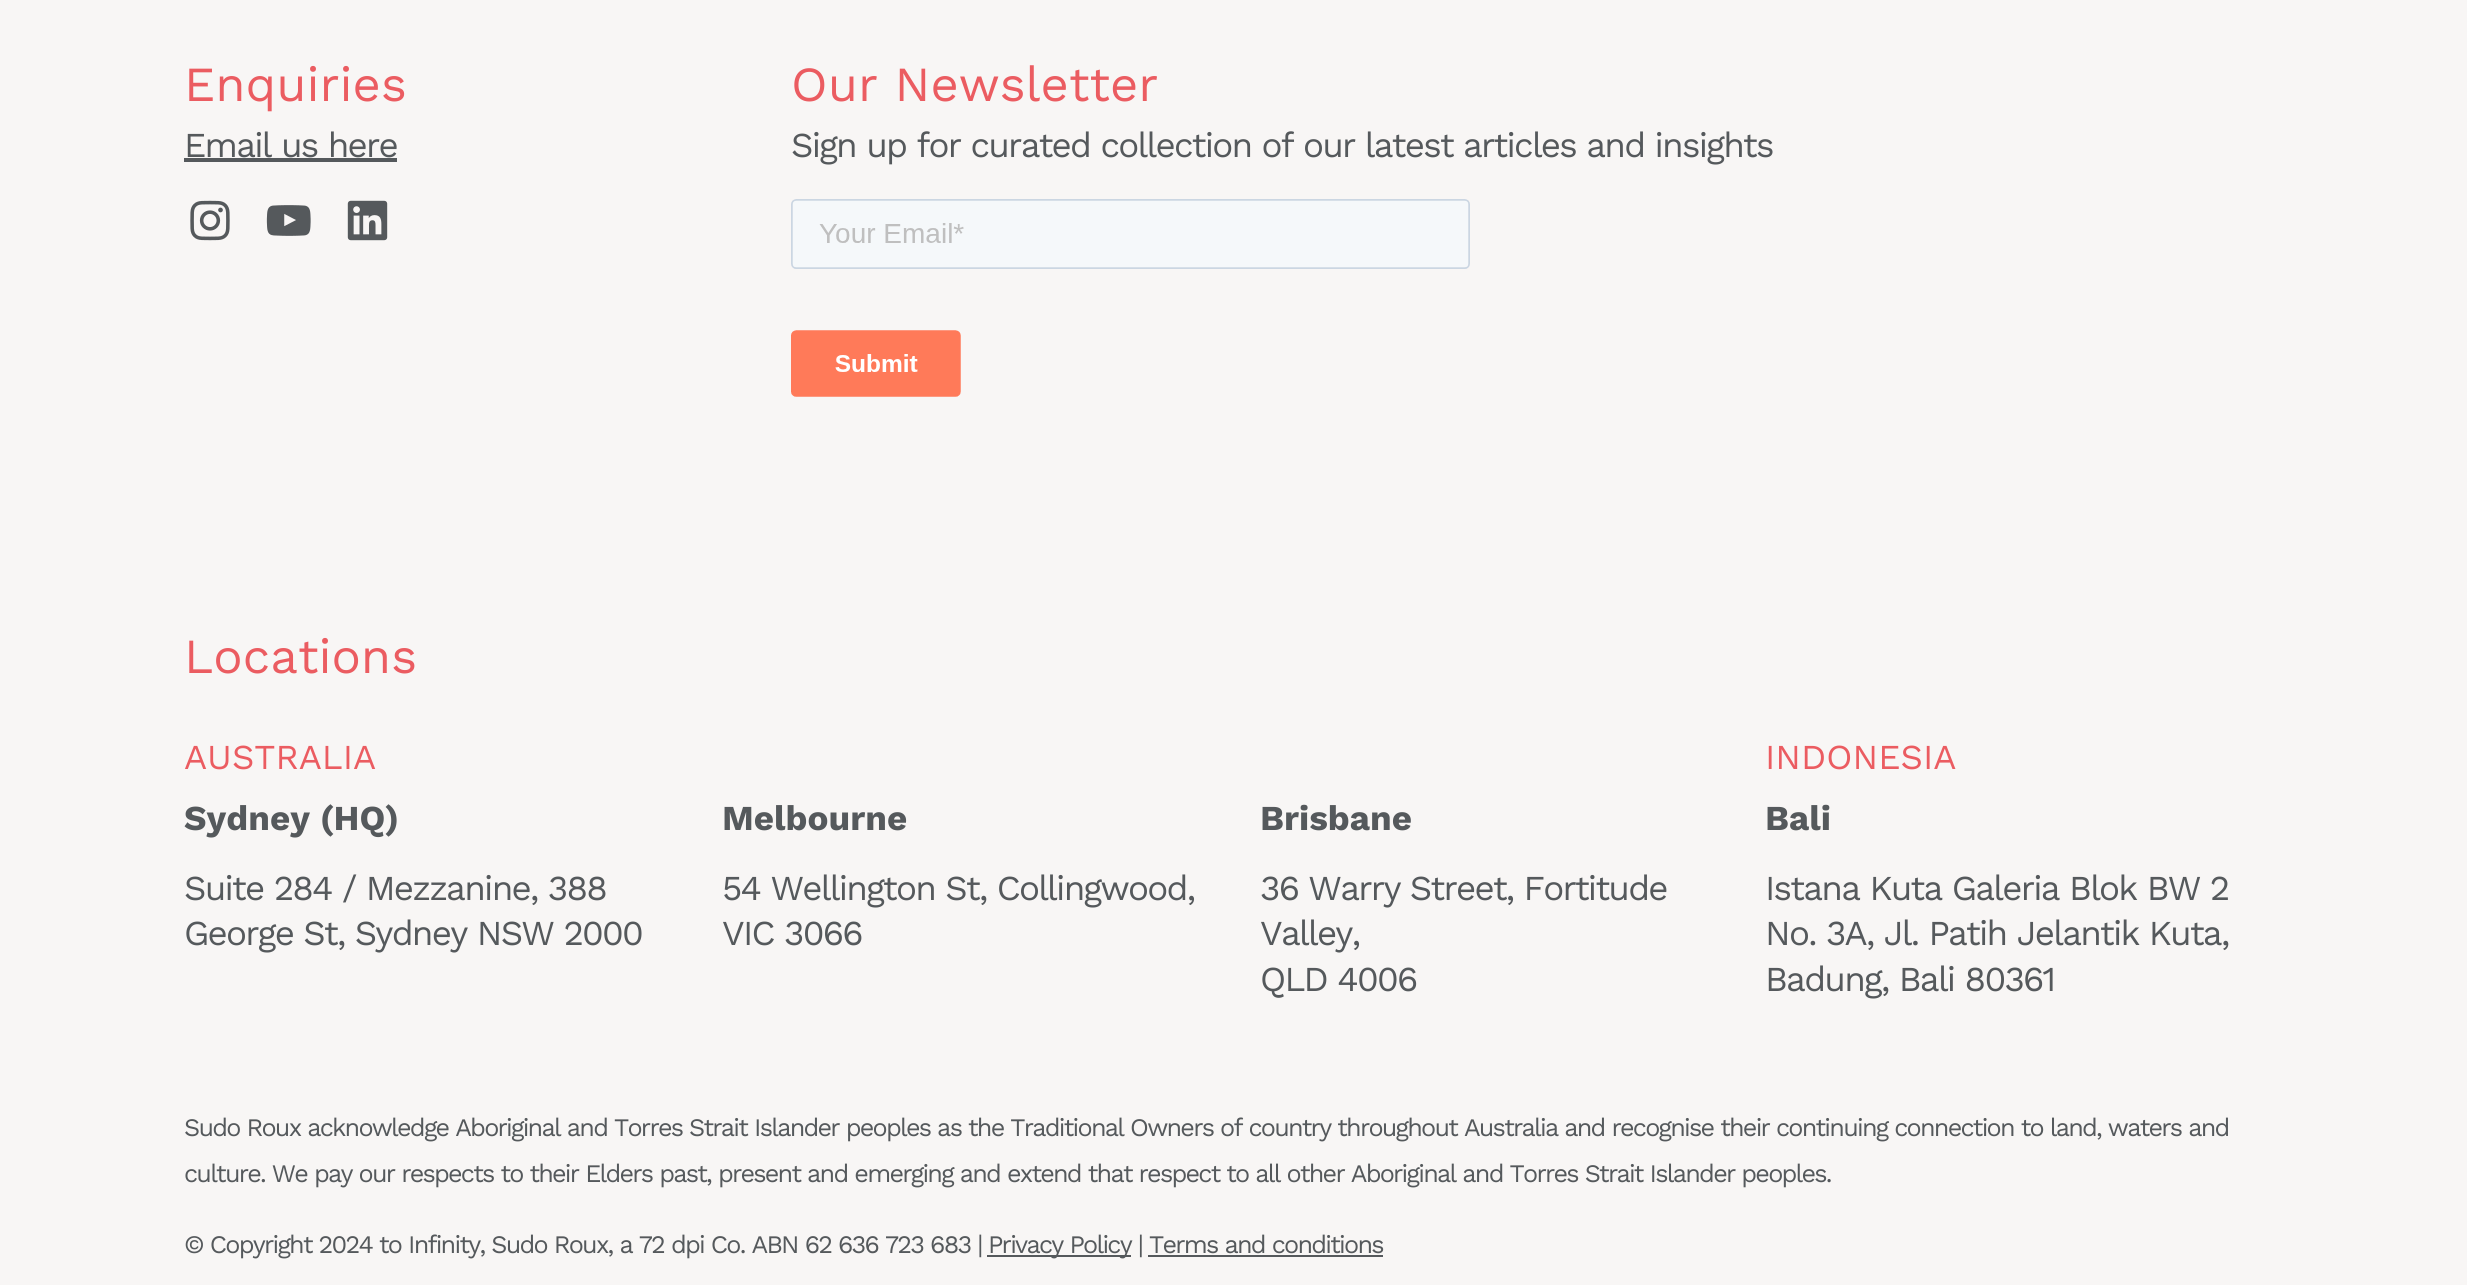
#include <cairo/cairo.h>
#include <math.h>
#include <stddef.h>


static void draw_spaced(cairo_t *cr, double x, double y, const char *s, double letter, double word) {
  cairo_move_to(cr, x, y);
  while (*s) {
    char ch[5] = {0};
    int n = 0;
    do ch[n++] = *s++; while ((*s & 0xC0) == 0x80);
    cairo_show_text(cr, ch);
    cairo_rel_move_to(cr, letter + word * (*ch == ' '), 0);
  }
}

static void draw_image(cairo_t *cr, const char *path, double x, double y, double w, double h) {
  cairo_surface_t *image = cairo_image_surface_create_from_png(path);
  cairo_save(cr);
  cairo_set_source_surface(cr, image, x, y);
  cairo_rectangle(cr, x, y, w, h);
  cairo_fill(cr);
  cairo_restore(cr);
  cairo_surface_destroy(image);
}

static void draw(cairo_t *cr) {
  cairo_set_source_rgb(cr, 248 / 255.0, 246 / 255.0, 245 / 255.0);
  cairo_paint(cr);
  cairo_set_source_rgb(cr, 85 / 255.0, 89 / 255.0, 92 / 255.0);
  cairo_rectangle(cr, 184, 158, 213, 4);
  cairo_fill(cr);
  draw_image(cr, "images/1.png", 190, 200, 40, 41);
  draw_image(cr, "images/2.png", 266, 205, 45, 31);
  draw_image(cr, "images/3.png", 347, 200, 41, 41);
  draw_image(cr, "images/4.png", 791, 199, 679, 198);
  cairo_rectangle(cr, 987, 1255, 144, 2);
  cairo_fill(cr);
  cairo_rectangle(cr, 1148, 1255, 235, 2);
  cairo_fill(cr);
  cairo_select_font_face(cr, "Work Sans", CAIRO_FONT_SLANT_NORMAL, CAIRO_FONT_WEIGHT_NORMAL);
  cairo_set_font_size(cr, 49);
  cairo_set_source_rgb(cr, 235 / 255.0, 92 / 255.0, 97 / 255.0);
  cairo_move_to(cr, 184, 101);
  cairo_show_text(cr, "Enquiries");
  cairo_set_font_size(cr, 35);
  cairo_set_source_rgb(cr, 85 / 255.0, 89 / 255.0, 92 / 255.0);
  draw_spaced(cr, 184, 157, "Email us here", -1.75, 0);
  cairo_set_font_size(cr, 49);
  cairo_set_source_rgb(cr, 235 / 255.0, 92 / 255.0, 97 / 255.0);
  cairo_move_to(cr, 791, 101);
  cairo_show_text(cr, "Our Newsletter");
  cairo_set_font_size(cr, 35);
  cairo_set_source_rgb(cr, 85 / 255.0, 89 / 255.0, 92 / 255.0);
  draw_spaced(cr, 791, 157, "Sign up for curated collection of our latest articles and insights", -1.75, 0);
  cairo_set_font_size(cr, 49);
  cairo_set_source_rgb(cr, 235 / 255.0, 92 / 255.0, 97 / 255.0);
  cairo_move_to(cr, 184, 673);
  cairo_show_text(cr, "Locations");
  cairo_set_font_size(cr, 35);
  cairo_move_to(cr, 184, 769);
  cairo_show_text(cr, "AUSTRALIA");
  cairo_select_font_face(cr, "Work Sans", CAIRO_FONT_SLANT_NORMAL, CAIRO_FONT_WEIGHT_BOLD);
  cairo_set_source_rgb(cr, 85 / 255.0, 89 / 255.0, 92 / 255.0);
  cairo_move_to(cr, 184, 830);
  cairo_show_text(cr, "Sydney (HQ)");
  cairo_select_font_face(cr, "Work Sans", CAIRO_FONT_SLANT_NORMAL, CAIRO_FONT_WEIGHT_NORMAL);
  draw_spaced(cr, 184, 900, "Suite 284 / Mezzanine, 388", -1.75, 0);
  draw_spaced(cr, 184, 945, "George St, Sydney NSW 2000", -1.75, 0);
  cairo_select_font_face(cr, "Work Sans", CAIRO_FONT_SLANT_NORMAL, CAIRO_FONT_WEIGHT_BOLD);
  cairo_move_to(cr, 722, 830);
  cairo_show_text(cr, "Melbourne");
  cairo_select_font_face(cr, "Work Sans", CAIRO_FONT_SLANT_NORMAL, CAIRO_FONT_WEIGHT_NORMAL);
  draw_spaced(cr, 722, 900, "54 Wellington St, Collingwood,", -1.75, 0);
  draw_spaced(cr, 722, 945, "VIC 3066", -1.75, 0);
  cairo_select_font_face(cr, "Work Sans", CAIRO_FONT_SLANT_NORMAL, CAIRO_FONT_WEIGHT_BOLD);
  cairo_move_to(cr, 1260, 830);
  cairo_show_text(cr, "Brisbane");
  cairo_select_font_face(cr, "Work Sans", CAIRO_FONT_SLANT_NORMAL, CAIRO_FONT_WEIGHT_NORMAL);
  draw_spaced(cr, 1260, 900, "36 Warry Street, Fortitude", -1.75, 0);
  draw_spaced(cr, 1260, 945, "Valley,", -1.75, 0);
  draw_spaced(cr, 1260, 991, "QLD 4006", -1.75, 0);
  cairo_set_source_rgb(cr, 235 / 255.0, 92 / 255.0, 97 / 255.0);
  cairo_move_to(cr, 1765, 769);
  cairo_show_text(cr, "INDONESIA");
  cairo_select_font_face(cr, "Work Sans", CAIRO_FONT_SLANT_NORMAL, CAIRO_FONT_WEIGHT_BOLD);
  cairo_set_source_rgb(cr, 85 / 255.0, 89 / 255.0, 92 / 255.0);
  cairo_move_to(cr, 1765, 830);
  cairo_show_text(cr, "Bali");
  cairo_select_font_face(cr, "Work Sans", CAIRO_FONT_SLANT_NORMAL, CAIRO_FONT_WEIGHT_NORMAL);
  draw_spaced(cr, 1765, 900, "Istana Kuta Galeria Blok BW 2", -1.75, 0);
  draw_spaced(cr, 1765, 945, "No. 3A, Jl. Patih Jelantik Kuta,", -1.75, 0);
  draw_spaced(cr, 1765, 991, "Badung, Bali 80361", -1.75, 0);
  cairo_set_font_size(cr, 25.2);
  draw_spaced(cr, 184, 1136, "Sudo Roux acknowledge Aboriginal and Torres Strait Islander peoples as the Traditional Owners of country throughout Australia and recognise their continuing connection to land, waters and", -1.75, 0);
  draw_spaced(cr, 184, 1182, "culture. We pay our respects to their Elders past, present and emerging and extend that respect to all other Aboriginal and Torres Strait Islander peoples.", -1.75, 0);
  draw_spaced(cr, 184, 1253, "© Copyright 2024 to Infinity, Sudo Roux, a 72 dpi Co. ABN 62 636 723 683 |", -1.75, 0);
  draw_spaced(cr, 988, 1253, "Privacy Policy | Terms and conditions", -1.75, 0);
}

int main(void) {
  cairo_surface_t *surface = cairo_image_surface_create(CAIRO_FORMAT_RGB24, 2467, 1285);
  cairo_t *cr = cairo_create(surface);
  cairo_font_options_t *options = cairo_font_options_create();
  cairo_font_options_set_hint_metrics(options, CAIRO_HINT_METRICS_OFF);
  cairo_font_options_set_hint_style(options, CAIRO_HINT_STYLE_NONE);
  cairo_set_font_options(cr, options);
  cairo_set_miter_limit(cr, 4);
  draw(cr);
  cairo_surface_write_to_png(surface, "out.png");
  cairo_font_options_destroy(options);
  cairo_destroy(cr);
  cairo_surface_destroy(surface);
  return 0;
}
